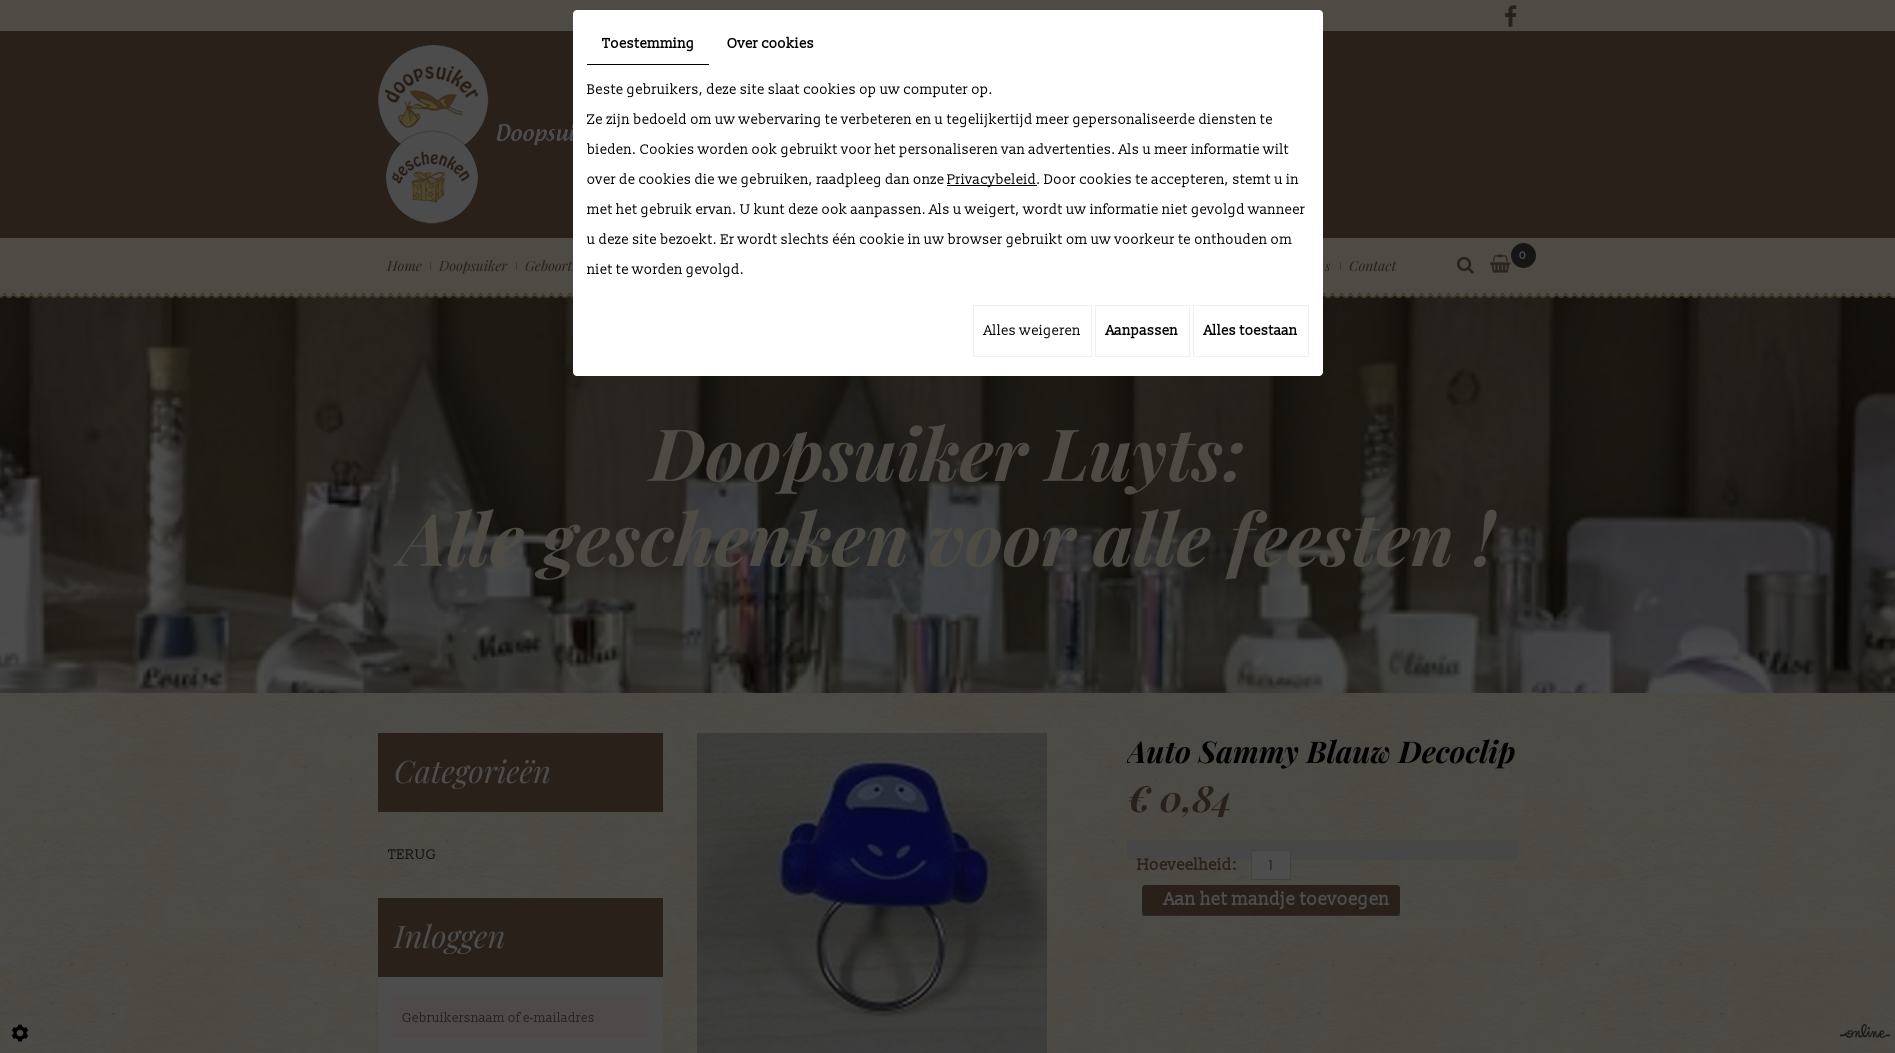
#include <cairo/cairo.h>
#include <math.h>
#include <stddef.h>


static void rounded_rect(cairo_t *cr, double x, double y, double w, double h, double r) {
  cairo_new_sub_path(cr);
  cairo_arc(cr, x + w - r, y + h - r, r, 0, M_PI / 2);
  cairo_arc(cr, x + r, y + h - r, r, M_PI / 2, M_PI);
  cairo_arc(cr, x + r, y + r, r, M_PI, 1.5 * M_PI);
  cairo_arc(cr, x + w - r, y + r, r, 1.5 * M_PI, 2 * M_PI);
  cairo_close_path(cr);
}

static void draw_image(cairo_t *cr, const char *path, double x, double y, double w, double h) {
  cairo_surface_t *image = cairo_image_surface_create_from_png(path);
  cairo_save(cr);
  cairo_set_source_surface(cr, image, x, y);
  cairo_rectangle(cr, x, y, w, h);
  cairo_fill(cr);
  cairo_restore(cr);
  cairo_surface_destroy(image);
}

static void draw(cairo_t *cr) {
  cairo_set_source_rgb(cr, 1, 1, 1);
  cairo_paint(cr);
  draw_image(cr, "images/1.png", 0, 693, 1895, 360);
  cairo_set_source_rgb(cr, 77 / 255.0, 75 / 255.0, 68 / 255.0);
  cairo_rectangle(cr, 0, 0, 1895, 31);
  cairo_fill(cr);
  draw_image(cr, "images/2.png", 1505, 5, 12, 22);
  cairo_set_source_rgb(cr, 41 / 255.0, 32 / 255.0, 26 / 255.0);
  cairo_rectangle(cr, 0, 31, 1895, 207);
  cairo_fill(cr);
  draw_image(cr, "images/3.png", 378, 45, 195, 179);
  cairo_set_source_rgb(cr, 77 / 255.0, 75 / 255.0, 68 / 255.0);
  cairo_rectangle(cr, 0, 238, 1895, 55);
  cairo_fill(cr);
  draw_image(cr, "images/4.png", 1490, 254, 21, 19);
  cairo_set_source_rgb(cr, 22 / 255.0, 21 / 255.0, 21 / 255.0);
  cairo_arc(cr, 1523.5, 255.5, 12.5, 0, 2 * M_PI);
  cairo_fill(cr);
  draw_image(cr, "images/5.png", 1457, 256, 17, 18);
  cairo_set_source_rgb(cr, 60 / 255.0, 55 / 255.0, 49 / 255.0);
  cairo_rectangle(cr, 430, 262, 1, 8);
  cairo_fill(cr);
  cairo_rectangle(cr, 516, 262, 1, 8);
  cairo_fill(cr);
  cairo_rectangle(cr, 1340, 262, 1, 8);
  cairo_fill(cr);
  draw_image(cr, "images/7.png", 0, 296, 1895, 397);
  draw_image(cr, "images/6.png", 0, 293, 1895, 5);
  cairo_set_source_rgb(cr, 41 / 255.0, 32 / 255.0, 26 / 255.0);
  cairo_rectangle(cr, 378, 733, 285, 79);
  cairo_fill(cr);
  cairo_set_source_rgb(cr, 77 / 255.0, 77 / 255.0, 77 / 255.0);
  cairo_rectangle(cr, 378, 977, 285, 76);
  cairo_fill(cr);
  cairo_set_source_rgb(cr, 41 / 255.0, 32 / 255.0, 26 / 255.0);
  cairo_rectangle(cr, 378, 898, 285, 79);
  cairo_fill(cr);
  cairo_set_source_rgb(cr, 77 / 255.0, 74 / 255.0, 73 / 255.0);
  cairo_rectangle(cr, 392, 997, 256, 41);
  cairo_fill(cr);
  draw_image(cr, "images/8.png", 697, 733, 350, 320);
  cairo_set_source_rgb(cr, 71 / 255.0, 71 / 255.0, 71 / 255.0);
  cairo_rectangle(cr, 1127, 840, 391, 20);
  cairo_fill(cr);
  cairo_set_source_rgb(cr, 77 / 255.0, 77 / 255.0, 77 / 255.0);
  cairo_rectangle(cr, 1251.5, 850.5, 39, 29);
  cairo_fill_preserve(cr);
  cairo_set_source_rgb(cr, 66 / 255.0, 66 / 255.0, 67 / 255.0);
  cairo_set_line_width(cr, 1);
  cairo_stroke(cr);
  cairo_save(cr);
  cairo_rectangle(cr, 1127, 840, 391, 76);
  cairo_clip(cr);
  cairo_set_source_rgba(cr, 5 / 255.0, 5 / 255.0, 16 / 255.0, 0.49);
  cairo_new_path(cr);
  cairo_move_to(cr, 1142, 912);
  cairo_curve_to(cr, 1142, 914, 1142, 918, 1145, 918);
  cairo_line_to(cr, 1397, 918);
  cairo_curve_to(cr, 1400, 918, 1400, 914, 1400, 912);
  cairo_curve_to(cr, 1400, 914, 1399, 915, 1397, 915);
  cairo_line_to(cr, 1145, 915);
  cairo_curve_to(cr, 1143, 915, 1142, 914, 1142, 912);
  cairo_close_path(cr);
  cairo_fill(cr);
  cairo_restore(cr);
  cairo_set_source_rgb(cr, 41 / 255.0, 32 / 255.0, 26 / 255.0);
  rounded_rect(cr, 1142, 885, 258, 30, 3);
  cairo_fill(cr);
  cairo_set_source_rgba(cr, 77 / 255.0, 77 / 255.0, 77 / 255.0, 0.54);
  cairo_arc(cr, 20, 1033, 15, 0, 2 * M_PI);
  cairo_fill(cr);
  draw_image(cr, "images/9.png", 11, 1024, 18, 18);
  draw_image(cr, "images/10.png", 1840, 1023, 51, 15);
  cairo_select_font_face(cr, "Slabo 13px", CAIRO_FONT_SLANT_NORMAL, CAIRO_FONT_WEIGHT_BOLD);
  cairo_set_font_size(cr, 12);
  cairo_set_source_rgb(cr, 77 / 255.0, 77 / 255.0, 77 / 255.0);
  cairo_move_to(cr, 1519, 259);
  cairo_show_text(cr, "0");
  cairo_select_font_face(cr, "Playfair Display", CAIRO_FONT_SLANT_ITALIC, CAIRO_FONT_WEIGHT_NORMAL);
  cairo_set_font_size(cr, 14);
  cairo_set_source_rgb(cr, 41 / 255.0, 32 / 255.0, 26 / 255.0);
  cairo_move_to(cr, 387, 271);
  cairo_show_text(cr, "Home");
  cairo_move_to(cr, 439, 271);
  cairo_show_text(cr, "Doopsuiker");
  cairo_move_to(cr, 525, 271);
  cairo_show_text(cr, "Geboort");
  cairo_set_source_rgb(cr, 1, 1, 1);
  rounded_rect(cr, 573, 10, 750, 366, 4);
  cairo_fill(cr);
  cairo_rectangle(cr, 1193.5, 305.5, 115, 51);
  cairo_set_source_rgb(cr, 240 / 255.0, 240 / 255.0, 240 / 255.0);
  cairo_stroke(cr);
  cairo_select_font_face(cr, "Slabo 13px", CAIRO_FONT_SLANT_NORMAL, CAIRO_FONT_WEIGHT_BOLD);
  cairo_set_source_rgb(cr, 0, 0, 0);
  cairo_move_to(cr, 1204, 335);
  cairo_show_text(cr, "Alles toestaan");
  cairo_rectangle(cr, 1095.5, 305.5, 94, 51);
  cairo_set_source_rgb(cr, 240 / 255.0, 240 / 255.0, 240 / 255.0);
  cairo_stroke(cr);
  cairo_set_source_rgb(cr, 0, 0, 0);
  cairo_move_to(cr, 1106, 335);
  cairo_show_text(cr, "Aanpassen");
  cairo_rectangle(cr, 973.5, 305.5, 118, 51);
  cairo_set_source_rgb(cr, 240 / 255.0, 240 / 255.0, 240 / 255.0);
  cairo_stroke(cr);
  cairo_select_font_face(cr, "Slabo 13px", CAIRO_FONT_SLANT_NORMAL, CAIRO_FONT_WEIGHT_NORMAL);
  cairo_set_source_rgb(cr, 0, 0, 0);
  cairo_move_to(cr, 984, 335);
  cairo_show_text(cr, "Alles weigeren");
  cairo_move_to(cr, 587, 274);
  cairo_show_text(cr, "niet te worden gevolgd.");
  cairo_move_to(cr, 587, 244);
  cairo_show_text(cr, "u deze site bezoekt. Er wordt slechts één cookie in uw browser gebruikt om uw voorkeur te onthouden om");
  cairo_move_to(cr, 587, 214);
  cairo_show_text(cr, "met het gebruik ervan. U kunt deze ook aanpassen. Als u weigert, wordt uw informatie niet gevolgd wanneer");
  cairo_rectangle(cr, 947, 185, 90, 1);
  cairo_fill(cr);
  cairo_move_to(cr, 947, 184);
  cairo_show_text(cr, "Privacybeleid. Door cookies te accepteren, stemt u in");
  cairo_move_to(cr, 587, 184);
  cairo_show_text(cr, "over de cookies die we gebruiken, raadpleeg dan onze");
  cairo_move_to(cr, 587, 154);
  cairo_show_text(cr, "bieden. Cookies worden ook gebruikt voor het personaliseren van advertenties. Als u meer informatie wilt");
  cairo_move_to(cr, 587, 124);
  cairo_show_text(cr, "Ze zijn bedoeld om uw webervaring te verbeteren en u tegelijkertijd meer gepersonaliseerde diensten te");
  cairo_move_to(cr, 587, 94);
  cairo_show_text(cr, "Beste gebruikers, deze site slaat cookies op uw computer op.");
  cairo_select_font_face(cr, "Slabo 13px", CAIRO_FONT_SLANT_NORMAL, CAIRO_FONT_WEIGHT_BOLD);
  cairo_move_to(cr, 727, 48);
  cairo_show_text(cr, "Over cookies");
  cairo_move_to(cr, 602, 48);
  cairo_show_text(cr, "Toestemming");
  cairo_rectangle(cr, 587, 64, 122, 1);
  cairo_fill(cr);
  cairo_select_font_face(cr, "Playfair Display", CAIRO_FONT_SLANT_ITALIC, CAIRO_FONT_WEIGHT_NORMAL);
  cairo_set_source_rgb(cr, 41 / 255.0, 32 / 255.0, 26 / 255.0);
  cairo_move_to(cr, 1325, 271);
  cairo_show_text(cr, "s");
  cairo_move_to(cr, 1349, 271);
  cairo_show_text(cr, "Contact");
  cairo_select_font_face(cr, "Playfair Display", CAIRO_FONT_SLANT_ITALIC, CAIRO_FONT_WEIGHT_BOLD);
  cairo_set_font_size(cr, 72);
  cairo_set_source_rgb(cr, 77 / 255.0, 75 / 255.0, 68 / 255.0);
  cairo_move_to(cr, 650, 481);
  cairo_show_text(cr, "Doopsuiker Luyts:");
  cairo_move_to(cr, 400, 566);
  cairo_show_text(cr, "Alle geschenken voor alle feesten !");
  cairo_select_font_face(cr, "Playfair Display", CAIRO_FONT_SLANT_ITALIC, CAIRO_FONT_WEIGHT_NORMAL);
  cairo_set_font_size(cr, 31);
  cairo_set_source_rgb(cr, 77 / 255.0, 77 / 255.0, 77 / 255.0);
  cairo_move_to(cr, 394, 783);
  cairo_show_text(cr, "Categorieën");
  cairo_select_font_face(cr, "Slabo 13px", CAIRO_FONT_SLANT_NORMAL, CAIRO_FONT_WEIGHT_NORMAL);
  cairo_set_font_size(cr, 14);
  cairo_set_source_rgb(cr, 15 / 255.0, 15 / 255.0, 15 / 255.0);
  cairo_move_to(cr, 388, 859);
  cairo_show_text(cr, "TERUG");
  cairo_select_font_face(cr, "Playfair Display", CAIRO_FONT_SLANT_ITALIC, CAIRO_FONT_WEIGHT_NORMAL);
  cairo_set_font_size(cr, 31);
  cairo_set_source_rgb(cr, 77 / 255.0, 77 / 255.0, 77 / 255.0);
  cairo_move_to(cr, 394, 948);
  cairo_show_text(cr, "Inloggen");
  cairo_select_font_face(cr, "Slabo 13px", CAIRO_FONT_SLANT_NORMAL, CAIRO_FONT_WEIGHT_NORMAL);
  cairo_set_font_size(cr, 13);
  cairo_set_source_rgb(cr, 35 / 255.0, 35 / 255.0, 35 / 255.0);
  cairo_move_to(cr, 402, 1022);
  cairo_show_text(cr, "Gebruikersnaam of e-mailadres");
  cairo_save(cr);
  cairo_rectangle(cr, 1127, 733, 391, 107);
  cairo_clip(cr);
  cairo_select_font_face(cr, "Playfair Display", CAIRO_FONT_SLANT_ITALIC, CAIRO_FONT_WEIGHT_BOLD);
  cairo_set_font_size(cr, 30);
  cairo_set_source_rgb(cr, 0, 0, 0);
  cairo_move_to(cr, 1127, 763);
  cairo_show_text(cr, "Auto Sammy Blauw Decoclip");
  cairo_restore(cr);
  cairo_select_font_face(cr, "Playfair Display", CAIRO_FONT_SLANT_ITALIC, CAIRO_FONT_WEIGHT_BOLD);
  cairo_set_font_size(cr, 36);
  cairo_set_source_rgb(cr, 41 / 255.0, 32 / 255.0, 26 / 255.0);
  cairo_move_to(cr, 1127, 812);
  cairo_show_text(cr, "€ 0,84");
  cairo_select_font_face(cr, "Slabo 13px", CAIRO_FONT_SLANT_NORMAL, CAIRO_FONT_WEIGHT_BOLD);
  cairo_set_font_size(cr, 16);
  cairo_move_to(cr, 1137, 870);
  cairo_show_text(cr, "Hoeveelheid:");
  cairo_select_font_face(cr, "Slabo 13px", CAIRO_FONT_SLANT_NORMAL, CAIRO_FONT_WEIGHT_NORMAL);
  cairo_move_to(cr, 1269, 870);
  cairo_show_text(cr, "1");
  cairo_select_font_face(cr, "Slabo 13px", CAIRO_FONT_SLANT_NORMAL, CAIRO_FONT_WEIGHT_BOLD);
  cairo_set_font_size(cr, 18);
  cairo_set_source_rgb(cr, 77 / 255.0, 77 / 255.0, 77 / 255.0);
  cairo_move_to(cr, 1164, 905);
  cairo_show_text(cr, "Aan het mandje toevoegen");
}

int main(void) {
  cairo_surface_t *surface = cairo_image_surface_create(CAIRO_FORMAT_RGB24, 1895, 1053);
  cairo_t *cr = cairo_create(surface);
  cairo_font_options_t *options = cairo_font_options_create();
  cairo_font_options_set_hint_metrics(options, CAIRO_HINT_METRICS_OFF);
  cairo_font_options_set_hint_style(options, CAIRO_HINT_STYLE_NONE);
  cairo_set_font_options(cr, options);
  cairo_set_miter_limit(cr, 4);
  draw(cr);
  cairo_surface_write_to_png(surface, "out.png");
  cairo_font_options_destroy(options);
  cairo_destroy(cr);
  cairo_surface_destroy(surface);
  return 0;
}
